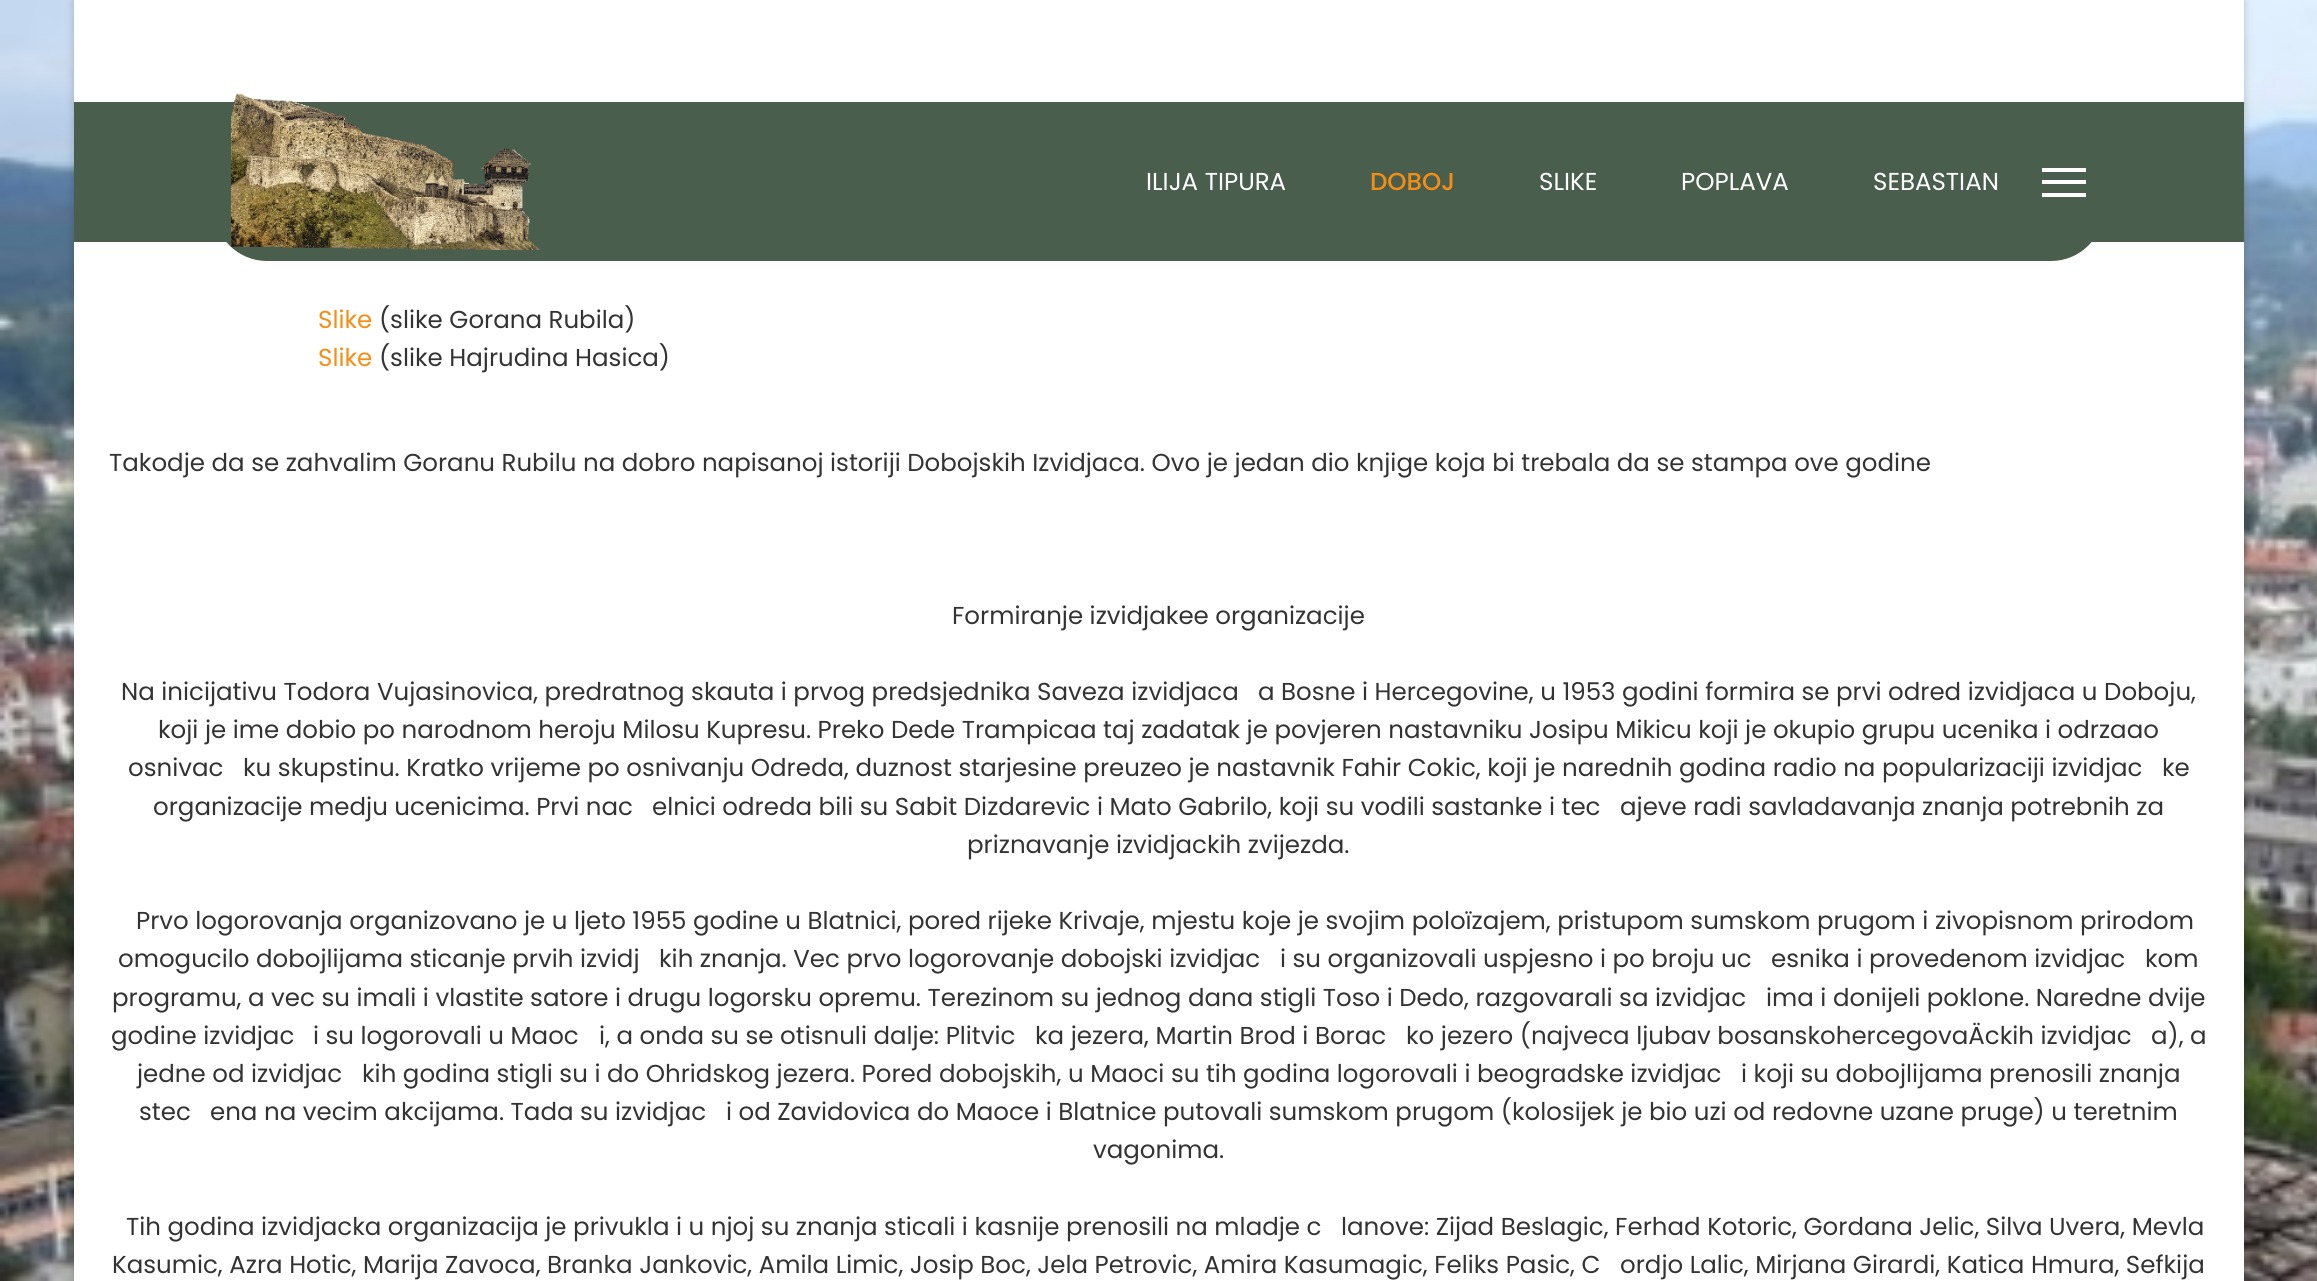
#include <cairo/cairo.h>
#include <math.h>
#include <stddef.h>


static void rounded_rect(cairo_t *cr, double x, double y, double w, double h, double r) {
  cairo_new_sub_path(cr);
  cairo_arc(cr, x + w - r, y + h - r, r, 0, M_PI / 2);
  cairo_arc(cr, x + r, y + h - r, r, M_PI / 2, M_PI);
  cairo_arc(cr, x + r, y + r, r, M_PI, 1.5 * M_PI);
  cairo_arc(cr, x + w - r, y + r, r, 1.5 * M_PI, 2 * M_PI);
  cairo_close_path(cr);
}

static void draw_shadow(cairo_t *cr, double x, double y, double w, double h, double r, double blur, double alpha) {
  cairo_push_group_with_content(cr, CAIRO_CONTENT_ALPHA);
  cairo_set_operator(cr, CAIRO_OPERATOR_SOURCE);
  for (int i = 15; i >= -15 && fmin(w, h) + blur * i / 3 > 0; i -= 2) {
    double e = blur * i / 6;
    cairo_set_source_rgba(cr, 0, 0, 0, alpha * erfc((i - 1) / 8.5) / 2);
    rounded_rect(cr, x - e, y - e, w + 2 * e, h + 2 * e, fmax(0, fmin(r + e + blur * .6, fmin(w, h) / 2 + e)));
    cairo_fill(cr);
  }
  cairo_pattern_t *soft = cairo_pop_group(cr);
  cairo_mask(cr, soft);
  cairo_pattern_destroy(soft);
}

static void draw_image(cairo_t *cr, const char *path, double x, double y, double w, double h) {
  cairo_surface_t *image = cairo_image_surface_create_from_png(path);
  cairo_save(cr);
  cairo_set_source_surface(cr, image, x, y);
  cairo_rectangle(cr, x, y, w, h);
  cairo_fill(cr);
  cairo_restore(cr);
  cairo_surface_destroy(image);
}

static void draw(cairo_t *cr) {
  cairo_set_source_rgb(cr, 1, 1, 1);
  cairo_paint(cr);
  draw_image(cr, "images/1.png", 0, 0, 2317, 1281);
  cairo_set_source_rgb(cr, 0, 0, 0);
  draw_shadow(cr, 74, 0, 2170, 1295, 0, 4.5, 0.2);
  cairo_set_source_rgb(cr, 1, 1, 1);
  cairo_rectangle(cr, 74, 0, 2170, 1281);
  cairo_fill(cr);
  cairo_set_source_rgb(cr, 73 / 255.0, 94 / 255.0, 77 / 255.0);
  cairo_rectangle(cr, 74, 102, 2170, 140);
  cairo_fill(cr);
  rounded_rect(cr, 214, 102, 1890, 159, 53);
  cairo_fill(cr);
  draw_image(cr, "images/2.png", 231, 93, 309, 157);
  cairo_set_source_rgb(cr, 1, 1, 1);
  cairo_rectangle(cr, 2042, 168, 44, 4);
  cairo_fill(cr);
  cairo_rectangle(cr, 2042, 180, 44, 4);
  cairo_fill(cr);
  cairo_rectangle(cr, 2042, 193, 44, 4);
  cairo_fill(cr);
  cairo_select_font_face(cr, "Poppins", CAIRO_FONT_SLANT_NORMAL, CAIRO_FONT_WEIGHT_NORMAL);
  cairo_set_font_size(cr, 24.5);
  cairo_move_to(cr, 1146, 190);
  cairo_show_text(cr, "ILIJA TIPURA");
  cairo_select_font_face(cr, "Poppins Medium", CAIRO_FONT_SLANT_NORMAL, CAIRO_FONT_WEIGHT_NORMAL);
  cairo_set_source_rgb(cr, 246 / 255.0, 142 / 255.0, 19 / 255.0);
  cairo_move_to(cr, 1370, 190);
  cairo_show_text(cr, "DOBOJ");
  cairo_select_font_face(cr, "Poppins", CAIRO_FONT_SLANT_NORMAL, CAIRO_FONT_WEIGHT_NORMAL);
  cairo_set_source_rgb(cr, 1, 1, 1);
  cairo_move_to(cr, 1539, 190);
  cairo_show_text(cr, "SLIKE");
  cairo_move_to(cr, 1681, 190);
  cairo_show_text(cr, "POPLAVA");
  cairo_move_to(cr, 1873, 190);
  cairo_show_text(cr, "SEBASTIAN");
  cairo_set_source_rgb(cr, 246 / 255.0, 142 / 255.0, 19 / 255.0);
  cairo_move_to(cr, 318, 328);
  cairo_show_text(cr, "Slike");
  cairo_set_source_rgb(cr, 51 / 255.0, 51 / 255.0, 51 / 255.0);
  cairo_move_to(cr, 379, 328);
  cairo_show_text(cr, "(slike Gorana Rubila)");
  cairo_set_source_rgb(cr, 246 / 255.0, 142 / 255.0, 19 / 255.0);
  cairo_move_to(cr, 318, 366);
  cairo_show_text(cr, "Slike");
  cairo_set_source_rgb(cr, 51 / 255.0, 51 / 255.0, 51 / 255.0);
  cairo_move_to(cr, 379, 366);
  cairo_show_text(cr, "(slike Hajrudina Hasica)");
  cairo_move_to(cr, 109, 471);
  cairo_show_text(cr, "Takodje da se zahvalim Goranu Rubilu na dobro napisanoj istoriji Dobojskih Izvidjaca. Ovo je jedan dio knjige koja bi trebala da se stampa ove godine");
  cairo_move_to(cr, 952, 624);
  cairo_show_text(cr, "Formiranje izvidjakee organizacije");
  cairo_move_to(cr, 121, 700);
  cairo_show_text(cr, "Na inicijativu Todora Vujasinovica, predratnog skauta i prvog predsjednika Saveza izvidjaca");
  cairo_move_to(cr, 1258, 700);
  cairo_show_text(cr, "a Bosne i Hercegovine, u 1953 godini formira se prvi odred izvidjaca u Doboju,");
  cairo_move_to(cr, 158, 738);
  cairo_show_text(cr, "koji je ime dobio po narodnom heroju Milosu Kupresu. Preko Dede Trampicaa taj zadatak je povjeren nastavniku Josipu Mikicu koji je okupio grupu ucenika i odrzaao");
  cairo_move_to(cr, 128, 776);
  cairo_show_text(cr, "osnivac");
  cairo_move_to(cr, 243, 776);
  cairo_show_text(cr, "ku skupstinu. Kratko vrijeme po osnivanju Odreda, duznost starjesine preuzeo je nastavnik Fahir Cokic, koji je narednih godina radio na popularizaciji izvidjac");
  cairo_move_to(cr, 2162, 776);
  cairo_show_text(cr, "ke");
  cairo_move_to(cr, 153, 815);
  cairo_show_text(cr, "organizacije medju ucenicima. Prvi nac");
  cairo_move_to(cr, 652, 815);
  cairo_show_text(cr, "elnici odreda bili su Sabit Dizdarevic i Mato Gabrilo, koji su vodili sastanke i tec");
  cairo_move_to(cr, 1620, 815);
  cairo_show_text(cr, "ajeve radi savladavanja znanja potrebnih za");
  cairo_move_to(cr, 967, 853);
  cairo_show_text(cr, "priznavanje izvidjackih zvijezda.");
  cairo_move_to(cr, 136, 929);
  cairo_show_text(cr, "Prvo logorovanja organizovano je u ljeto 1955 godine u Blatnici, pored rijeke Krivaje, mjestu koje je svojim poloïzajem, pristupom sumskom prugom i zivopisnom prirodom");
  cairo_move_to(cr, 118, 967);
  cairo_show_text(cr, "omogucilo dobojlijama sticanje prvih izvidj");
  cairo_move_to(cr, 659, 967);
  cairo_show_text(cr, "kih znanja. Vec prvo logorovanje dobojski izvidjac");
  cairo_move_to(cr, 1280, 967);
  cairo_show_text(cr, "i su organizovali uspjesno i po broju uc");
  cairo_move_to(cr, 1771, 967);
  cairo_show_text(cr, "esnika i provedenom izvidjac");
  cairo_move_to(cr, 2145, 967);
  cairo_show_text(cr, "kom");
  cairo_move_to(cr, 112, 1006);
  cairo_show_text(cr, "programu, a vec su imali i vlastite satore i drugu logorsku opremu. Terezinom su jednog dana stigli Toso i Dedo, razgovarali sa izvidjac");
  cairo_move_to(cr, 1766, 1006);
  cairo_show_text(cr, "ima i donijeli poklone. Naredne dvije");
  cairo_move_to(cr, 111, 1044);
  cairo_show_text(cr, "godine izvidjac");
  cairo_move_to(cr, 313, 1044);
  cairo_show_text(cr, "i su logorovali u Maoc");
  cairo_move_to(cr, 599, 1044);
  cairo_show_text(cr, "i, a onda su se otisnuli dalje: Plitvic");
  cairo_move_to(cr, 1035, 1044);
  cairo_show_text(cr, "ka jezera, Martin Brod i Borac");
  cairo_move_to(cr, 1406, 1044);
  cairo_show_text(cr, "ko jezero (najveca ljubav bosanskohercegovaÄckih izvidjac");
  cairo_move_to(cr, 2151, 1044);
  cairo_show_text(cr, "a), a");
  cairo_move_to(cr, 137, 1082);
  cairo_show_text(cr, "jedne od izvidjac");
  cairo_move_to(cr, 362, 1082);
  cairo_show_text(cr, "kih godina stigli su i do Ohridskog jezera. Pored dobojskih, u Maoci su tih godina logorovali i beogradske izvidjac");
  cairo_move_to(cr, 1741, 1082);
  cairo_show_text(cr, "i koji su dobojlijama prenosili znanja");
  cairo_move_to(cr, 139, 1120);
  cairo_show_text(cr, "stec");
  cairo_move_to(cr, 210, 1120);
  cairo_show_text(cr, "ena na vecim akcijama. Tada su izvidjac");
  cairo_move_to(cr, 726, 1120);
  cairo_show_text(cr, "i od Zavidovica do Maoce i Blatnice putovali sumskom prugom (kolosijek je bio uzi od redovne uzane pruge) u teretnim");
  cairo_move_to(cr, 1093, 1158);
  cairo_show_text(cr, "vagonima.");
  cairo_move_to(cr, 126, 1235);
  cairo_show_text(cr, "Tih godina izvidjacka organizacija je privukla i u njoj su znanja sticali i kasnije prenosili na mladje c");
  cairo_move_to(cr, 1341, 1235);
  cairo_show_text(cr, "lanove: Zijad Beslagic, Ferhad Kotoric, Gordana Jelic, Silva Uvera, Mevla");
  cairo_move_to(cr, 112, 1273);
  cairo_show_text(cr, "Kasumic, Azra Hotic, Marija Zavoca, Branka Jankovic, Amila Limic, Josip Boc, Jela Petrovic, Amira Kasumagic, Feliks Pasic, C");
  cairo_move_to(cr, 1620, 1273);
  cairo_show_text(cr, "ordjo Lalic, Mirjana Girardi, Katica Hmura, Sefkija");
}

int main(void) {
  cairo_surface_t *surface = cairo_image_surface_create(CAIRO_FORMAT_RGB24, 2317, 1281);
  cairo_t *cr = cairo_create(surface);
  cairo_font_options_t *options = cairo_font_options_create();
  cairo_font_options_set_hint_metrics(options, CAIRO_HINT_METRICS_OFF);
  cairo_font_options_set_hint_style(options, CAIRO_HINT_STYLE_NONE);
  cairo_set_font_options(cr, options);
  cairo_set_miter_limit(cr, 4);
  draw(cr);
  cairo_surface_write_to_png(surface, "out.png");
  cairo_font_options_destroy(options);
  cairo_destroy(cr);
  cairo_surface_destroy(surface);
  return 0;
}
